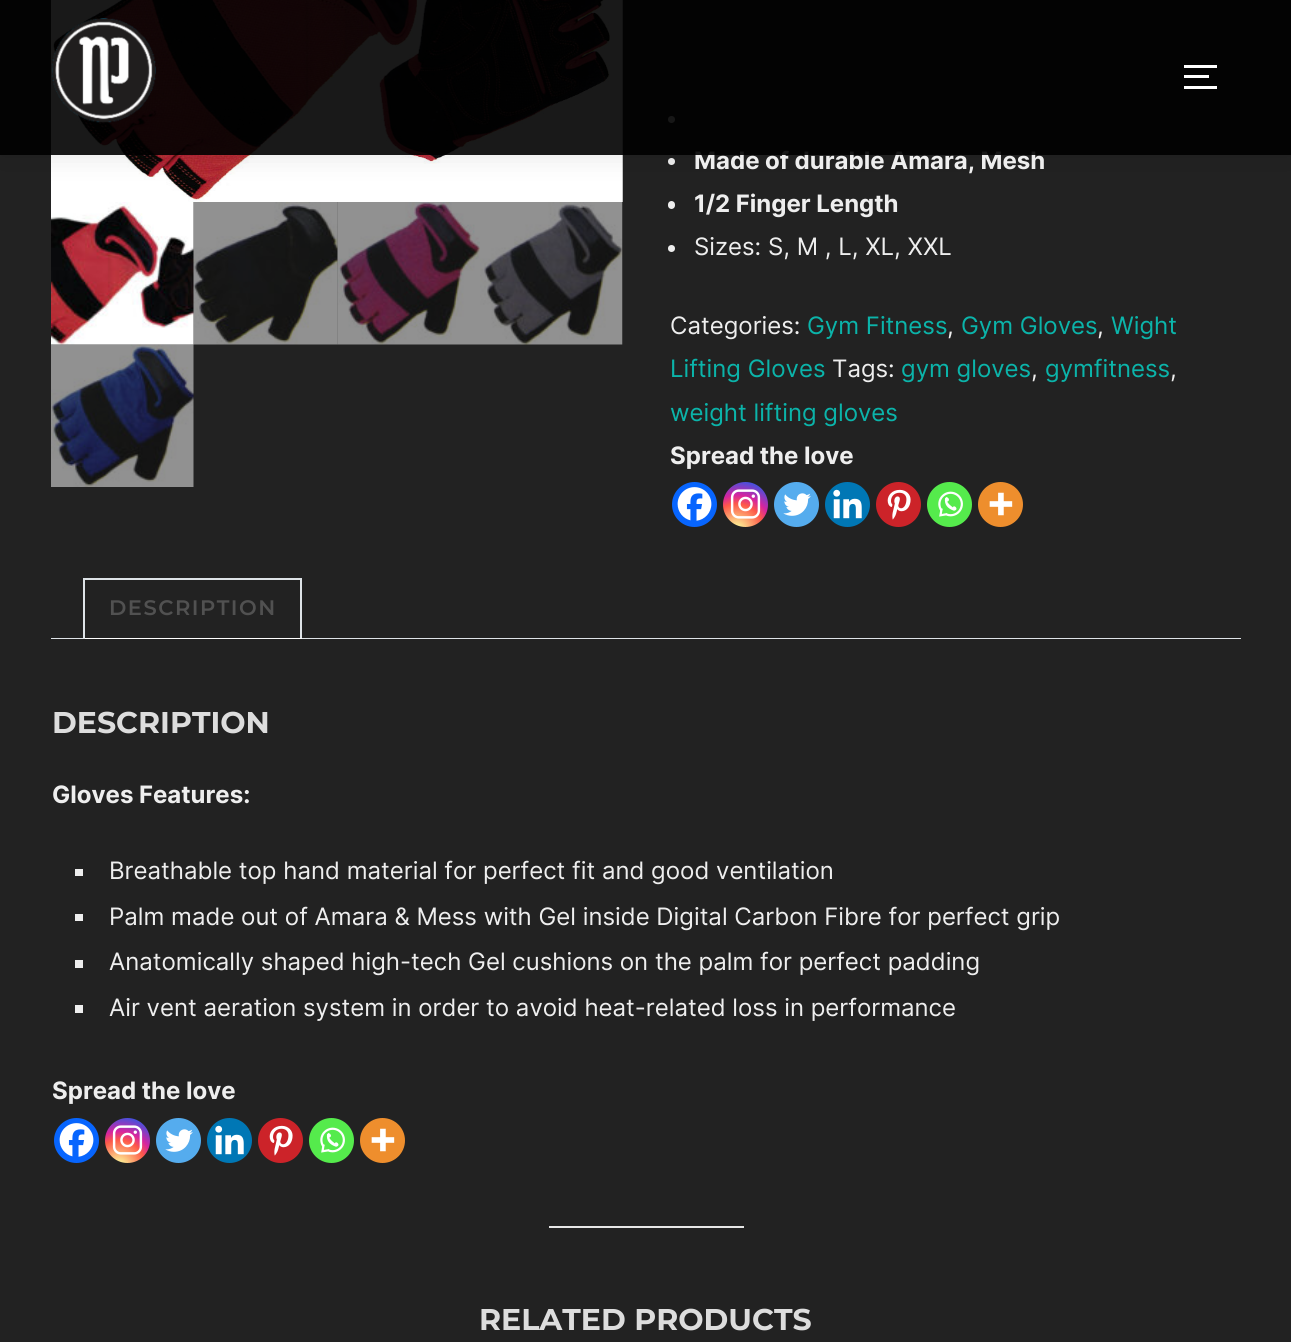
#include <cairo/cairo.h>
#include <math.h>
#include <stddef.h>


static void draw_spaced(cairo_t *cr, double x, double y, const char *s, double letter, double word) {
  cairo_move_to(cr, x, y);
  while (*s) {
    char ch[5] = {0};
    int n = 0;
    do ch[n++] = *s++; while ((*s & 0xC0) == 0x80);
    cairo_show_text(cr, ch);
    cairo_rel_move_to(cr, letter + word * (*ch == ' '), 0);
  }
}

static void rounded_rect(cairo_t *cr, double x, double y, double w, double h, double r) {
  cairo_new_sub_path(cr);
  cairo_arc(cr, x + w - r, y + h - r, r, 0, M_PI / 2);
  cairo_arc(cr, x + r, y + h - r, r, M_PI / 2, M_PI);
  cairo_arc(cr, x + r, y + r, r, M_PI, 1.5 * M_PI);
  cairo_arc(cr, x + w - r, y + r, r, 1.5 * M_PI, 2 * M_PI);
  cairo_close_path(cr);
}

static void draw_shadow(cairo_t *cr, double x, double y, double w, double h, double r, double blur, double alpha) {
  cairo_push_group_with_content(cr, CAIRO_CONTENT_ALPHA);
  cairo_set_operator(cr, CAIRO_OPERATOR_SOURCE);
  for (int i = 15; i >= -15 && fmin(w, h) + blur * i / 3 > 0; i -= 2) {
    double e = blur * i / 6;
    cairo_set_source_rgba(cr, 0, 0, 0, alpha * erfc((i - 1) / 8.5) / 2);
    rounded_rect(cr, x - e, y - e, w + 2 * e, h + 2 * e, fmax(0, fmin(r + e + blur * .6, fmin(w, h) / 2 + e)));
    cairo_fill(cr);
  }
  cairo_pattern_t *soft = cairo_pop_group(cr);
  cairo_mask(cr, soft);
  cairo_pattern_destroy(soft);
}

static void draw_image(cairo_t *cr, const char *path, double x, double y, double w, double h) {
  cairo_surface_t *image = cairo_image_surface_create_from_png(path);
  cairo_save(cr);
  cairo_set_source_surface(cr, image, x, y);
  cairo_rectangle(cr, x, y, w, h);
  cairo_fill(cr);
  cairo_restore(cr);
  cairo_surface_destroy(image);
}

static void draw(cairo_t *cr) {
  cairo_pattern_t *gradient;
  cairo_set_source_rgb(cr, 34 / 255.0, 34 / 255.0, 34 / 255.0);
  cairo_paint(cr);
  cairo_set_source_rgb(cr, 145 / 255.0, 145 / 255.0, 145 / 255.0);
  cairo_rectangle(cr, 622, 0, 1, 202);
  cairo_fill(cr);
  draw_image(cr, "images/2.png", 51, 0, 572, 202);
  cairo_set_source_rgb(cr, 238 / 255.0, 238 / 255.0, 238 / 255.0);
  cairo_arc(cr, 671.5, 119.5, 3.5, 0, 2 * M_PI);
  cairo_fill(cr);
  cairo_arc(cr, 671.5, 161.5, 3.5, 0, 2 * M_PI);
  cairo_fill(cr);
  cairo_save(cr);
  cairo_set_fill_rule(cr, CAIRO_FILL_RULE_EVEN_ODD);
  cairo_new_path(cr);
  cairo_move_to(cr, 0, 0);
  cairo_line_to(cr, 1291, 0);
  cairo_line_to(cr, 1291, 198);
  cairo_line_to(cr, 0, 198);
  cairo_close_path(cr);
  cairo_move_to(cr, 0, 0);
  cairo_line_to(cr, 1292, 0);
  cairo_line_to(cr, 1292, 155);
  cairo_line_to(cr, 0, 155);
  cairo_close_path(cr);
  cairo_clip(cr);
  cairo_set_source_rgb(cr, 0, 0, 0);
  draw_shadow(cr, -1, -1, 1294, 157, 0, 13.5, 0.1);
  cairo_restore(cr);
  draw_image(cr, "images/3.png", 51, 202, 143, 143);
  draw_image(cr, "images/4.png", 193, 202, 145, 143);
  draw_image(cr, "images/5.png", 337, 202, 143, 143);
  draw_image(cr, "images/6.png", 480, 202, 143, 143);
  draw_image(cr, "images/7.png", 51, 344, 143, 143);
  rounded_rect(cr, 668, 201, 7, 8, 3.5);
  cairo_fill(cr);
  cairo_arc(cr, 671.5, 248.5, 3.5, 0, 2 * M_PI);
  cairo_fill(cr);
  cairo_set_source_rgb(cr, 7 / 255.0, 101 / 255.0, 254 / 255.0);
  cairo_arc(cr, 694.5, 504.5, 22.5, 0, 2 * M_PI);
  cairo_fill(cr);
  draw_image(cr, "images/8.png", 677, 487, 35, 34);
  gradient = cairo_pattern_create_radial(737, 530, 0, 737, 530, 58);
  cairo_pattern_add_color_stop_rgba(gradient, 0, 253 / 255.0, 244 / 255.0, 151 / 255.0, 1);
  cairo_pattern_add_color_stop_rgba(gradient, 0.05, 253 / 255.0, 244 / 255.0, 151 / 255.0, 1);
  cairo_pattern_add_color_stop_rgba(gradient, 0.45, 253 / 255.0, 89 / 255.0, 73 / 255.0, 1);
  cairo_pattern_add_color_stop_rgba(gradient, 0.6, 214 / 255.0, 36 / 255.0, 159 / 255.0, 1);
  cairo_pattern_add_color_stop_rgba(gradient, 0.9, 40 / 255.0, 90 / 255.0, 235 / 255.0, 1);
  cairo_set_source(cr, gradient);
  cairo_pattern_destroy(gradient);
  cairo_arc(cr, 745.5, 504.5, 22.5, 0, 2 * M_PI);
  cairo_fill(cr);
  draw_image(cr, "images/9.png", 730, 489, 31, 30);
  cairo_set_source_rgb(cr, 85 / 255.0, 172 / 255.0, 238 / 255.0);
  cairo_arc(cr, 796.5, 504.5, 22.5, 0, 2 * M_PI);
  cairo_fill(cr);
  draw_image(cr, "images/10.png", 783, 493, 28, 23);
  cairo_set_source_rgb(cr, 0, 119 / 255.0, 181 / 255.0);
  cairo_arc(cr, 847.5, 504.5, 22.5, 0, 2 * M_PI);
  cairo_fill(cr);
  draw_image(cr, "images/11.png", 833, 489, 29, 30);
  cairo_set_source_rgb(cr, 204 / 255.0, 35 / 255.0, 41 / 255.0);
  cairo_arc(cr, 898.5, 504.5, 22.5, 0, 2 * M_PI);
  cairo_fill(cr);
  draw_image(cr, "images/12.png", 887, 489, 24, 31);
  cairo_set_source_rgb(cr, 85 / 255.0, 235 / 255.0, 76 / 255.0);
  cairo_arc(cr, 949.5, 504.5, 22.5, 0, 2 * M_PI);
  cairo_fill(cr);
  draw_image(cr, "images/13.png", 938, 491, 25, 26);
  cairo_set_source_rgb(cr, 238 / 255.0, 142 / 255.0, 45 / 255.0);
  cairo_arc(cr, 1000.5, 504.5, 22.5, 0, 2 * M_PI);
  cairo_fill(cr);
  draw_image(cr, "images/14.png", 989, 492, 24, 24);
  cairo_set_source_rgb(cr, 222 / 255.0, 227 / 255.0, 231 / 255.0);
  cairo_rectangle(cr, 83, 578, 219, 2);
  cairo_fill(cr);
  cairo_rectangle(cr, 51, 638, 1190, 1);
  cairo_fill(cr);
  cairo_rectangle(cr, 300, 578, 2, 61);
  cairo_fill(cr);
  cairo_set_source_rgb(cr, 1, 1, 1);
  cairo_rectangle(cr, 83, 638, 219, 1);
  cairo_fill(cr);
  cairo_set_source_rgb(cr, 222 / 255.0, 227 / 255.0, 231 / 255.0);
  cairo_rectangle(cr, 83, 578, 2, 61);
  cairo_fill(cr);
  cairo_set_source_rgb(cr, 238 / 255.0, 238 / 255.0, 238 / 255.0);
  cairo_rectangle(cr, 75, 869, 8, 7);
  cairo_fill(cr);
  cairo_rectangle(cr, 75, 914, 8, 7);
  cairo_fill(cr);
  cairo_rectangle(cr, 75, 960, 8, 8);
  cairo_fill(cr);
  cairo_rectangle(cr, 75, 1005, 8, 8);
  cairo_fill(cr);
  cairo_set_source_rgb(cr, 7 / 255.0, 101 / 255.0, 254 / 255.0);
  cairo_arc(cr, 76.5, 1140.5, 22.5, 0, 2 * M_PI);
  cairo_fill(cr);
  draw_image(cr, "images/8.png", 59, 1123, 35, 34);
  gradient = cairo_pattern_create_radial(119, 1166, 0, 119, 1166, 58);
  cairo_pattern_add_color_stop_rgba(gradient, 0, 253 / 255.0, 244 / 255.0, 151 / 255.0, 1);
  cairo_pattern_add_color_stop_rgba(gradient, 0.05, 253 / 255.0, 244 / 255.0, 151 / 255.0, 1);
  cairo_pattern_add_color_stop_rgba(gradient, 0.45, 253 / 255.0, 89 / 255.0, 73 / 255.0, 1);
  cairo_pattern_add_color_stop_rgba(gradient, 0.6, 214 / 255.0, 36 / 255.0, 159 / 255.0, 1);
  cairo_pattern_add_color_stop_rgba(gradient, 0.9, 40 / 255.0, 90 / 255.0, 235 / 255.0, 1);
  cairo_set_source(cr, gradient);
  cairo_pattern_destroy(gradient);
  cairo_arc(cr, 127.5, 1140.5, 22.5, 0, 2 * M_PI);
  cairo_fill(cr);
  draw_image(cr, "images/9.png", 112, 1125, 31, 30);
  cairo_set_source_rgb(cr, 85 / 255.0, 172 / 255.0, 238 / 255.0);
  cairo_arc(cr, 178.5, 1140.5, 22.5, 0, 2 * M_PI);
  cairo_fill(cr);
  draw_image(cr, "images/10.png", 165, 1129, 28, 23);
  cairo_set_source_rgb(cr, 0, 119 / 255.0, 181 / 255.0);
  cairo_arc(cr, 229.5, 1140.5, 22.5, 0, 2 * M_PI);
  cairo_fill(cr);
  draw_image(cr, "images/11.png", 215, 1125, 29, 30);
  cairo_set_source_rgb(cr, 204 / 255.0, 35 / 255.0, 41 / 255.0);
  cairo_arc(cr, 280.5, 1140.5, 22.5, 0, 2 * M_PI);
  cairo_fill(cr);
  draw_image(cr, "images/12.png", 269, 1125, 24, 31);
  cairo_set_source_rgb(cr, 85 / 255.0, 235 / 255.0, 76 / 255.0);
  cairo_arc(cr, 331.5, 1140.5, 22.5, 0, 2 * M_PI);
  cairo_fill(cr);
  draw_image(cr, "images/13.png", 320, 1127, 25, 26);
  cairo_set_source_rgb(cr, 238 / 255.0, 142 / 255.0, 45 / 255.0);
  cairo_arc(cr, 382.5, 1140.5, 22.5, 0, 2 * M_PI);
  cairo_fill(cr);
  draw_image(cr, "images/14.png", 371, 1128, 24, 24);
  cairo_set_source_rgb(cr, 230 / 255.0, 230 / 255.0, 230 / 255.0);
  cairo_rectangle(cr, 549, 1226, 195, 2);
  cairo_fill(cr);
  cairo_select_font_face(cr, "Inter", CAIRO_FONT_SLANT_NORMAL, CAIRO_FONT_WEIGHT_BOLD);
  cairo_set_font_size(cr, 24);
  cairo_set_source_rgb(cr, 238 / 255.0, 238 / 255.0, 238 / 255.0);
  cairo_move_to(cr, 694, 169);
  cairo_show_text(cr, "Made of durable Amara, Mesh");
  cairo_set_source_rgba(cr, 0, 0, 0, 0.9);
  cairo_rectangle(cr, 0, 0, 1291, 155);
  cairo_fill(cr);
  cairo_set_source_rgb(cr, 1, 1, 1);
  cairo_rectangle(cr, 1184, 86, 33, 3);
  cairo_fill(cr);
  cairo_rectangle(cr, 1184, 75, 25, 3);
  cairo_fill(cr);
  cairo_rectangle(cr, 1184, 65, 33, 3);
  cairo_fill(cr);
  draw_image(cr, "images/1.png", 51, 18, 105, 105);
  cairo_set_source_rgb(cr, 238 / 255.0, 238 / 255.0, 238 / 255.0);
  cairo_move_to(cr, 694, 212);
  cairo_show_text(cr, "1/2 Finger Length");
  cairo_select_font_face(cr, "Inter", CAIRO_FONT_SLANT_NORMAL, CAIRO_FONT_WEIGHT_NORMAL);
  cairo_move_to(cr, 694, 255);
  cairo_show_text(cr, "Sizes: S, M , L, XL, XXL");
  cairo_move_to(cr, 670, 334);
  cairo_show_text(cr, "Categories:");
  cairo_set_source_rgb(cr, 11 / 255.0, 180 / 255.0, 170 / 255.0);
  cairo_move_to(cr, 807, 334);
  cairo_show_text(cr, "Gym Fitness");
  cairo_set_source_rgb(cr, 238 / 255.0, 238 / 255.0, 238 / 255.0);
  cairo_move_to(cr, 947, 334);
  cairo_show_text(cr, ",");
  cairo_set_source_rgb(cr, 11 / 255.0, 180 / 255.0, 170 / 255.0);
  cairo_move_to(cr, 961, 334);
  cairo_show_text(cr, "Gym Gloves");
  cairo_set_source_rgb(cr, 238 / 255.0, 238 / 255.0, 238 / 255.0);
  cairo_move_to(cr, 1097, 334);
  cairo_show_text(cr, ",");
  cairo_set_source_rgb(cr, 11 / 255.0, 180 / 255.0, 170 / 255.0);
  cairo_move_to(cr, 1111, 334);
  cairo_show_text(cr, "Wight");
  cairo_move_to(cr, 670, 377);
  cairo_show_text(cr, "Lifting Gloves");
  cairo_set_source_rgb(cr, 238 / 255.0, 238 / 255.0, 238 / 255.0);
  cairo_move_to(cr, 832, 377);
  cairo_show_text(cr, "Tags:");
  cairo_set_source_rgb(cr, 11 / 255.0, 180 / 255.0, 170 / 255.0);
  cairo_move_to(cr, 901, 377);
  cairo_show_text(cr, "gym gloves");
  cairo_set_source_rgb(cr, 238 / 255.0, 238 / 255.0, 238 / 255.0);
  cairo_move_to(cr, 1031, 377);
  cairo_show_text(cr, ",");
  cairo_set_source_rgb(cr, 11 / 255.0, 180 / 255.0, 170 / 255.0);
  cairo_move_to(cr, 1045, 377);
  cairo_show_text(cr, "gymfitness");
  cairo_set_source_rgb(cr, 238 / 255.0, 238 / 255.0, 238 / 255.0);
  cairo_move_to(cr, 1170, 377);
  cairo_show_text(cr, ",");
  cairo_set_source_rgb(cr, 11 / 255.0, 180 / 255.0, 170 / 255.0);
  cairo_move_to(cr, 670, 421);
  cairo_show_text(cr, "weight lifting gloves");
  cairo_select_font_face(cr, "Inter", CAIRO_FONT_SLANT_NORMAL, CAIRO_FONT_WEIGHT_BOLD);
  cairo_set_source_rgb(cr, 238 / 255.0, 238 / 255.0, 238 / 255.0);
  cairo_move_to(cr, 670, 464);
  cairo_show_text(cr, "Spread the love");
  cairo_select_font_face(cr, "Montserrat SemiBold", CAIRO_FONT_SLANT_NORMAL, CAIRO_FONT_WEIGHT_NORMAL);
  cairo_set_font_size(cr, 21);
  cairo_set_source_rgb(cr, 81 / 255.0, 81 / 255.0, 81 / 255.0);
  draw_spaced(cr, 109, 615, "DESCRIPTION", 1.5, 0);
  cairo_select_font_face(cr, "Montserrat", CAIRO_FONT_SLANT_NORMAL, CAIRO_FONT_WEIGHT_BOLD);
  cairo_set_font_size(cr, 30);
  cairo_set_source_rgb(cr, 221 / 255.0, 221 / 255.0, 221 / 255.0);
  cairo_move_to(cr, 52, 733);
  cairo_show_text(cr, "DESCRIPTION");
  cairo_select_font_face(cr, "Inter", CAIRO_FONT_SLANT_NORMAL, CAIRO_FONT_WEIGHT_BOLD);
  cairo_set_font_size(cr, 24);
  cairo_set_source_rgb(cr, 238 / 255.0, 238 / 255.0, 238 / 255.0);
  cairo_move_to(cr, 52, 803);
  cairo_show_text(cr, "Gloves Features:");
  cairo_select_font_face(cr, "Inter", CAIRO_FONT_SLANT_NORMAL, CAIRO_FONT_WEIGHT_NORMAL);
  cairo_move_to(cr, 109, 879);
  cairo_show_text(cr, "Breathable top hand material for perfect fit and good ventilation");
  cairo_move_to(cr, 109, 925);
  cairo_show_text(cr, "Palm made out of Amara & Mess with Gel inside Digital Carbon Fibre for perfect grip");
  cairo_move_to(cr, 109, 970);
  cairo_show_text(cr, "Anatomically shaped high-tech Gel cushions on the palm for perfect padding");
  cairo_move_to(cr, 109, 1016);
  cairo_show_text(cr, "Air vent aeration system in order to avoid heat-related loss in performance");
  cairo_select_font_face(cr, "Inter", CAIRO_FONT_SLANT_NORMAL, CAIRO_FONT_WEIGHT_BOLD);
  cairo_move_to(cr, 52, 1099);
  cairo_show_text(cr, "Spread the love");
  cairo_select_font_face(cr, "Montserrat", CAIRO_FONT_SLANT_NORMAL, CAIRO_FONT_WEIGHT_BOLD);
  cairo_set_font_size(cr, 30);
  cairo_set_source_rgb(cr, 221 / 255.0, 221 / 255.0, 221 / 255.0);
  cairo_move_to(cr, 479, 1330);
  cairo_show_text(cr, "RELATED PRODUCTS");
}

int main(void) {
  cairo_surface_t *surface = cairo_image_surface_create(CAIRO_FORMAT_RGB24, 1291, 1342);
  cairo_t *cr = cairo_create(surface);
  cairo_font_options_t *options = cairo_font_options_create();
  cairo_font_options_set_hint_metrics(options, CAIRO_HINT_METRICS_OFF);
  cairo_font_options_set_hint_style(options, CAIRO_HINT_STYLE_NONE);
  cairo_set_font_options(cr, options);
  cairo_set_miter_limit(cr, 4);
  draw(cr);
  cairo_surface_write_to_png(surface, "out.png");
  cairo_font_options_destroy(options);
  cairo_destroy(cr);
  cairo_surface_destroy(surface);
  return 0;
}
